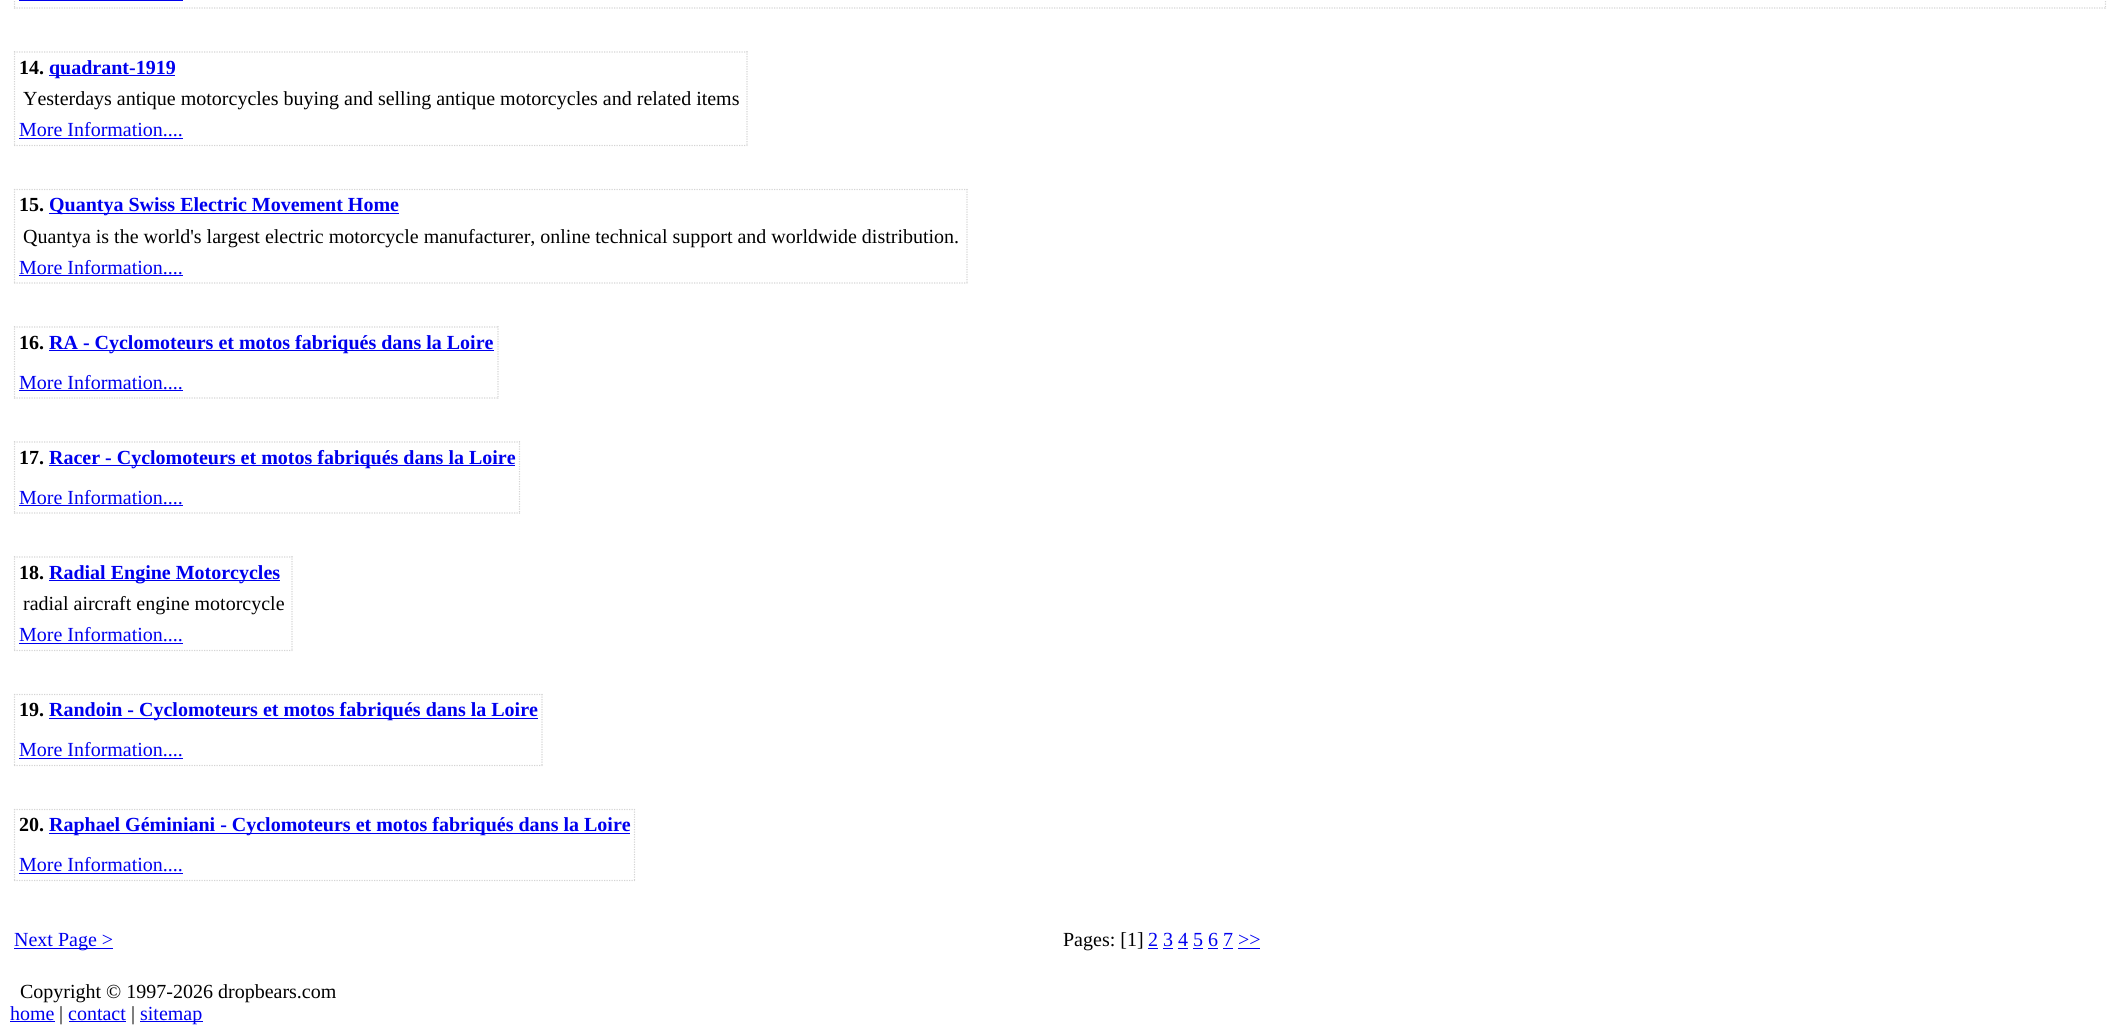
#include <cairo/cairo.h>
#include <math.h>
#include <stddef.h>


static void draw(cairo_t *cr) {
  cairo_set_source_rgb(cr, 1, 1, 1);
  cairo_paint(cr);
  cairo_new_path(cr);
  cairo_move_to(cr, 2105.5, -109);
  cairo_line_to(cr, 2105.5, 9);
  cairo_set_source_rgb(cr, 211 / 255.0, 211 / 255.0, 211 / 255.0);
  cairo_set_line_width(cr, 1.2);
  cairo_set_dash(cr, (double[]){1.25, 1.25}, 2, 0);
  cairo_stroke(cr);
  cairo_new_path(cr);
  cairo_move_to(cr, 14, 8);
  cairo_line_to(cr, 2106, 8);
  cairo_stroke(cr);
  cairo_new_path(cr);
  cairo_move_to(cr, 14.5, -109);
  cairo_line_to(cr, 14.5, 9);
  cairo_stroke(cr);
  cairo_set_source_rgb(cr, 0, 0, 238 / 255.0);
  cairo_rectangle(cr, 19, 0, 164, 1);
  cairo_fill(cr);
  cairo_new_path(cr);
  cairo_move_to(cr, 14, 52);
  cairo_line_to(cr, 747.5, 52);
  cairo_set_source_rgb(cr, 211 / 255.0, 211 / 255.0, 211 / 255.0);
  cairo_stroke(cr);
  cairo_new_path(cr);
  cairo_move_to(cr, 747, 51);
  cairo_line_to(cr, 747, 146);
  cairo_stroke(cr);
  cairo_new_path(cr);
  cairo_move_to(cr, 14, 145.5);
  cairo_line_to(cr, 747.5, 145.5);
  cairo_stroke(cr);
  cairo_new_path(cr);
  cairo_move_to(cr, 14.5, 51);
  cairo_line_to(cr, 14.5, 146);
  cairo_stroke(cr);
  cairo_set_source_rgb(cr, 0, 0, 238 / 255.0);
  cairo_rectangle(cr, 49, 75, 126, 1);
  cairo_fill(cr);
  cairo_rectangle(cr, 19, 138, 164, 1);
  cairo_fill(cr);
  cairo_new_path(cr);
  cairo_move_to(cr, 14, 189.5);
  cairo_line_to(cr, 967.5, 189.5);
  cairo_set_source_rgb(cr, 211 / 255.0, 211 / 255.0, 211 / 255.0);
  cairo_stroke(cr);
  cairo_new_path(cr);
  cairo_move_to(cr, 967, 189);
  cairo_line_to(cr, 967, 284);
  cairo_stroke(cr);
  cairo_new_path(cr);
  cairo_move_to(cr, 14, 283);
  cairo_line_to(cr, 967.5, 283);
  cairo_stroke(cr);
  cairo_new_path(cr);
  cairo_move_to(cr, 14.5, 189);
  cairo_line_to(cr, 14.5, 284);
  cairo_stroke(cr);
  cairo_set_source_rgb(cr, 0, 0, 238 / 255.0);
  cairo_rectangle(cr, 49, 213, 350, 1);
  cairo_fill(cr);
  cairo_rectangle(cr, 19, 275, 164, 1);
  cairo_fill(cr);
  cairo_new_path(cr);
  cairo_move_to(cr, 14, 327);
  cairo_line_to(cr, 499, 327);
  cairo_set_source_rgb(cr, 211 / 255.0, 211 / 255.0, 211 / 255.0);
  cairo_stroke(cr);
  cairo_new_path(cr);
  cairo_move_to(cr, 498, 326);
  cairo_line_to(cr, 498, 399);
  cairo_stroke(cr);
  cairo_new_path(cr);
  cairo_move_to(cr, 14, 398);
  cairo_line_to(cr, 499, 398);
  cairo_stroke(cr);
  cairo_new_path(cr);
  cairo_move_to(cr, 14.5, 326);
  cairo_line_to(cr, 14.5, 399);
  cairo_stroke(cr);
  cairo_set_source_rgb(cr, 0, 0, 238 / 255.0);
  cairo_rectangle(cr, 49, 350, 445, 1);
  cairo_fill(cr);
  cairo_rectangle(cr, 19, 390, 164, 1);
  cairo_fill(cr);
  cairo_new_path(cr);
  cairo_move_to(cr, 14, 442);
  cairo_line_to(cr, 520, 442);
  cairo_set_source_rgb(cr, 211 / 255.0, 211 / 255.0, 211 / 255.0);
  cairo_stroke(cr);
  cairo_new_path(cr);
  cairo_move_to(cr, 519.5, 441);
  cairo_line_to(cr, 519.5, 514);
  cairo_stroke(cr);
  cairo_new_path(cr);
  cairo_move_to(cr, 14, 513);
  cairo_line_to(cr, 520, 513);
  cairo_stroke(cr);
  cairo_new_path(cr);
  cairo_move_to(cr, 14.5, 441);
  cairo_line_to(cr, 14.5, 514);
  cairo_stroke(cr);
  cairo_set_source_rgb(cr, 0, 0, 238 / 255.0);
  cairo_rectangle(cr, 49, 465, 466, 1);
  cairo_fill(cr);
  cairo_rectangle(cr, 19, 505, 164, 1);
  cairo_fill(cr);
  cairo_new_path(cr);
  cairo_move_to(cr, 14, 557);
  cairo_line_to(cr, 292.5, 557);
  cairo_set_source_rgb(cr, 211 / 255.0, 211 / 255.0, 211 / 255.0);
  cairo_stroke(cr);
  cairo_new_path(cr);
  cairo_move_to(cr, 292, 556);
  cairo_line_to(cr, 292, 651);
  cairo_stroke(cr);
  cairo_new_path(cr);
  cairo_move_to(cr, 14, 650.5);
  cairo_line_to(cr, 292.5, 650.5);
  cairo_stroke(cr);
  cairo_new_path(cr);
  cairo_move_to(cr, 14.5, 556);
  cairo_line_to(cr, 14.5, 651);
  cairo_stroke(cr);
  cairo_set_source_rgb(cr, 0, 0, 238 / 255.0);
  cairo_rectangle(cr, 49, 580, 231, 1);
  cairo_fill(cr);
  cairo_rectangle(cr, 19, 643, 164, 1);
  cairo_fill(cr);
  cairo_new_path(cr);
  cairo_move_to(cr, 14, 694.5);
  cairo_line_to(cr, 542.5, 694.5);
  cairo_set_source_rgb(cr, 211 / 255.0, 211 / 255.0, 211 / 255.0);
  cairo_stroke(cr);
  cairo_new_path(cr);
  cairo_move_to(cr, 542, 694);
  cairo_line_to(cr, 542, 766);
  cairo_stroke(cr);
  cairo_new_path(cr);
  cairo_move_to(cr, 14, 765.5);
  cairo_line_to(cr, 542.5, 765.5);
  cairo_stroke(cr);
  cairo_new_path(cr);
  cairo_move_to(cr, 14.5, 694);
  cairo_line_to(cr, 14.5, 766);
  cairo_stroke(cr);
  cairo_set_source_rgb(cr, 0, 0, 238 / 255.0);
  cairo_rectangle(cr, 49, 718, 489, 1);
  cairo_fill(cr);
  cairo_rectangle(cr, 19, 758, 164, 1);
  cairo_fill(cr);
  cairo_new_path(cr);
  cairo_move_to(cr, 14, 809.5);
  cairo_line_to(cr, 635, 809.5);
  cairo_set_source_rgb(cr, 211 / 255.0, 211 / 255.0, 211 / 255.0);
  cairo_stroke(cr);
  cairo_new_path(cr);
  cairo_move_to(cr, 634.5, 809);
  cairo_line_to(cr, 634.5, 881);
  cairo_stroke(cr);
  cairo_new_path(cr);
  cairo_move_to(cr, 14, 880.5);
  cairo_line_to(cr, 635, 880.5);
  cairo_stroke(cr);
  cairo_new_path(cr);
  cairo_move_to(cr, 14.5, 809);
  cairo_line_to(cr, 14.5, 881);
  cairo_stroke(cr);
  cairo_set_source_rgb(cr, 0, 0, 238 / 255.0);
  cairo_rectangle(cr, 49, 833, 581, 1);
  cairo_fill(cr);
  cairo_rectangle(cr, 19, 873, 164, 1);
  cairo_fill(cr);
  cairo_rectangle(cr, 14, 948, 99, 1);
  cairo_fill(cr);
  cairo_rectangle(cr, 1148, 948, 10, 1);
  cairo_fill(cr);
  cairo_rectangle(cr, 1163, 948, 10, 1);
  cairo_fill(cr);
  cairo_rectangle(cr, 1178, 948, 10, 1);
  cairo_fill(cr);
  cairo_rectangle(cr, 1193, 948, 10, 1);
  cairo_fill(cr);
  cairo_rectangle(cr, 1208, 948, 10, 1);
  cairo_fill(cr);
  cairo_rectangle(cr, 1223, 948, 10, 1);
  cairo_fill(cr);
  cairo_rectangle(cr, 1238, 948, 22, 1);
  cairo_fill(cr);
  cairo_rectangle(cr, 10, 1021, 45, 1);
  cairo_fill(cr);
  cairo_rectangle(cr, 69, 1021, 57, 1);
  cairo_fill(cr);
  cairo_rectangle(cr, 140, 1021, 63, 1);
  cairo_fill(cr);
  cairo_select_font_face(cr, "Liberation Serif", CAIRO_FONT_SLANT_NORMAL, CAIRO_FONT_WEIGHT_BOLD);
  cairo_set_font_size(cr, 20);
  cairo_set_source_rgb(cr, 0, 0, 0);
  cairo_move_to(cr, 19, 74);
  cairo_show_text(cr, "14.");
  cairo_set_source_rgb(cr, 0, 0, 238 / 255.0);
  cairo_move_to(cr, 49, 74);
  cairo_show_text(cr, "quadrant-1919");
  cairo_select_font_face(cr, "Liberation Serif", CAIRO_FONT_SLANT_NORMAL, CAIRO_FONT_WEIGHT_NORMAL);
  cairo_set_source_rgb(cr, 0, 0, 0);
  cairo_move_to(cr, 23, 105);
  cairo_show_text(cr, "Yesterdays antique motorcycles buying and selling antique motorcycles and related items");
  cairo_set_source_rgb(cr, 0, 0, 238 / 255.0);
  cairo_move_to(cr, 19, 136);
  cairo_show_text(cr, "More Information....");
  cairo_select_font_face(cr, "Liberation Serif", CAIRO_FONT_SLANT_NORMAL, CAIRO_FONT_WEIGHT_BOLD);
  cairo_set_source_rgb(cr, 0, 0, 0);
  cairo_move_to(cr, 19, 211);
  cairo_show_text(cr, "15.");
  cairo_set_source_rgb(cr, 0, 0, 238 / 255.0);
  cairo_move_to(cr, 49, 211);
  cairo_show_text(cr, "Quantya Swiss Electric Movement Home");
  cairo_select_font_face(cr, "Liberation Serif", CAIRO_FONT_SLANT_NORMAL, CAIRO_FONT_WEIGHT_NORMAL);
  cairo_set_source_rgb(cr, 0, 0, 0);
  cairo_move_to(cr, 23, 243);
  cairo_show_text(cr, "Quantya is the world's largest electric motorcycle manufacturer, online technical support and worldwide distribution.");
  cairo_set_source_rgb(cr, 0, 0, 238 / 255.0);
  cairo_move_to(cr, 19, 274);
  cairo_show_text(cr, "More Information....");
  cairo_select_font_face(cr, "Liberation Serif", CAIRO_FONT_SLANT_NORMAL, CAIRO_FONT_WEIGHT_BOLD);
  cairo_set_source_rgb(cr, 0, 0, 0);
  cairo_move_to(cr, 19, 349);
  cairo_show_text(cr, "16.");
  cairo_set_source_rgb(cr, 0, 0, 238 / 255.0);
  cairo_move_to(cr, 49, 349);
  cairo_show_text(cr, "RA - Cyclomoteurs et motos fabriqués dans la Loire");
  cairo_select_font_face(cr, "Liberation Serif", CAIRO_FONT_SLANT_NORMAL, CAIRO_FONT_WEIGHT_NORMAL);
  cairo_move_to(cr, 19, 389);
  cairo_show_text(cr, "More Information....");
  cairo_select_font_face(cr, "Liberation Serif", CAIRO_FONT_SLANT_NORMAL, CAIRO_FONT_WEIGHT_BOLD);
  cairo_set_source_rgb(cr, 0, 0, 0);
  cairo_move_to(cr, 19, 464);
  cairo_show_text(cr, "17.");
  cairo_set_source_rgb(cr, 0, 0, 238 / 255.0);
  cairo_move_to(cr, 49, 464);
  cairo_show_text(cr, "Racer - Cyclomoteurs et motos fabriqués dans la Loire");
  cairo_select_font_face(cr, "Liberation Serif", CAIRO_FONT_SLANT_NORMAL, CAIRO_FONT_WEIGHT_NORMAL);
  cairo_move_to(cr, 19, 504);
  cairo_show_text(cr, "More Information....");
  cairo_select_font_face(cr, "Liberation Serif", CAIRO_FONT_SLANT_NORMAL, CAIRO_FONT_WEIGHT_BOLD);
  cairo_set_source_rgb(cr, 0, 0, 0);
  cairo_move_to(cr, 19, 579);
  cairo_show_text(cr, "18.");
  cairo_set_source_rgb(cr, 0, 0, 238 / 255.0);
  cairo_move_to(cr, 49, 579);
  cairo_show_text(cr, "Radial Engine Motorcycles");
  cairo_select_font_face(cr, "Liberation Serif", CAIRO_FONT_SLANT_NORMAL, CAIRO_FONT_WEIGHT_NORMAL);
  cairo_set_source_rgb(cr, 0, 0, 0);
  cairo_move_to(cr, 23, 610);
  cairo_show_text(cr, "radial aircraft engine motorcycle");
  cairo_set_source_rgb(cr, 0, 0, 238 / 255.0);
  cairo_move_to(cr, 19, 641);
  cairo_show_text(cr, "More Information....");
  cairo_select_font_face(cr, "Liberation Serif", CAIRO_FONT_SLANT_NORMAL, CAIRO_FONT_WEIGHT_BOLD);
  cairo_set_source_rgb(cr, 0, 0, 0);
  cairo_move_to(cr, 19, 716);
  cairo_show_text(cr, "19.");
  cairo_set_source_rgb(cr, 0, 0, 238 / 255.0);
  cairo_move_to(cr, 49, 716);
  cairo_show_text(cr, "Randoin - Cyclomoteurs et motos fabriqués dans la Loire");
  cairo_select_font_face(cr, "Liberation Serif", CAIRO_FONT_SLANT_NORMAL, CAIRO_FONT_WEIGHT_NORMAL);
  cairo_move_to(cr, 19, 756);
  cairo_show_text(cr, "More Information....");
  cairo_select_font_face(cr, "Liberation Serif", CAIRO_FONT_SLANT_NORMAL, CAIRO_FONT_WEIGHT_BOLD);
  cairo_set_source_rgb(cr, 0, 0, 0);
  cairo_move_to(cr, 19, 831);
  cairo_show_text(cr, "20.");
  cairo_set_source_rgb(cr, 0, 0, 238 / 255.0);
  cairo_move_to(cr, 49, 831);
  cairo_show_text(cr, "Raphael Géminiani - Cyclomoteurs et motos fabriqués dans la Loire");
  cairo_select_font_face(cr, "Liberation Serif", CAIRO_FONT_SLANT_NORMAL, CAIRO_FONT_WEIGHT_NORMAL);
  cairo_move_to(cr, 19, 871);
  cairo_show_text(cr, "More Information....");
  cairo_move_to(cr, 14, 946);
  cairo_show_text(cr, "Next Page >");
  cairo_set_source_rgb(cr, 0, 0, 0);
  cairo_move_to(cr, 1063, 946);
  cairo_show_text(cr, "Pages: [1]");
  cairo_set_source_rgb(cr, 0, 0, 238 / 255.0);
  cairo_move_to(cr, 1148, 946);
  cairo_show_text(cr, "2 3 4 5 6 7 >>");
  cairo_set_source_rgb(cr, 0, 0, 0);
  cairo_move_to(cr, 20, 998);
  cairo_show_text(cr, "Copyright © 1997-2026 dropbears.com");
  cairo_set_source_rgb(cr, 0, 0, 238 / 255.0);
  cairo_move_to(cr, 10, 1020);
  cairo_show_text(cr, "home");
  cairo_set_source_rgb(cr, 0, 0, 0);
  cairo_move_to(cr, 59, 1020);
  cairo_show_text(cr, "|");
  cairo_set_source_rgb(cr, 0, 0, 238 / 255.0);
  cairo_move_to(cr, 68, 1020);
  cairo_show_text(cr, "contact");
  cairo_set_source_rgb(cr, 0, 0, 0);
  cairo_move_to(cr, 131, 1020);
  cairo_show_text(cr, "|");
  cairo_set_source_rgb(cr, 0, 0, 238 / 255.0);
  cairo_move_to(cr, 140, 1020);
  cairo_show_text(cr, "sitemap");
}

int main(void) {
  cairo_surface_t *surface = cairo_image_surface_create(CAIRO_FORMAT_RGB24, 2120, 1034);
  cairo_t *cr = cairo_create(surface);
  cairo_font_options_t *options = cairo_font_options_create();
  cairo_font_options_set_hint_metrics(options, CAIRO_HINT_METRICS_OFF);
  cairo_font_options_set_hint_style(options, CAIRO_HINT_STYLE_NONE);
  cairo_set_font_options(cr, options);
  cairo_set_miter_limit(cr, 4);
  draw(cr);
  cairo_surface_write_to_png(surface, "out.png");
  cairo_font_options_destroy(options);
  cairo_destroy(cr);
  cairo_surface_destroy(surface);
  return 0;
}
